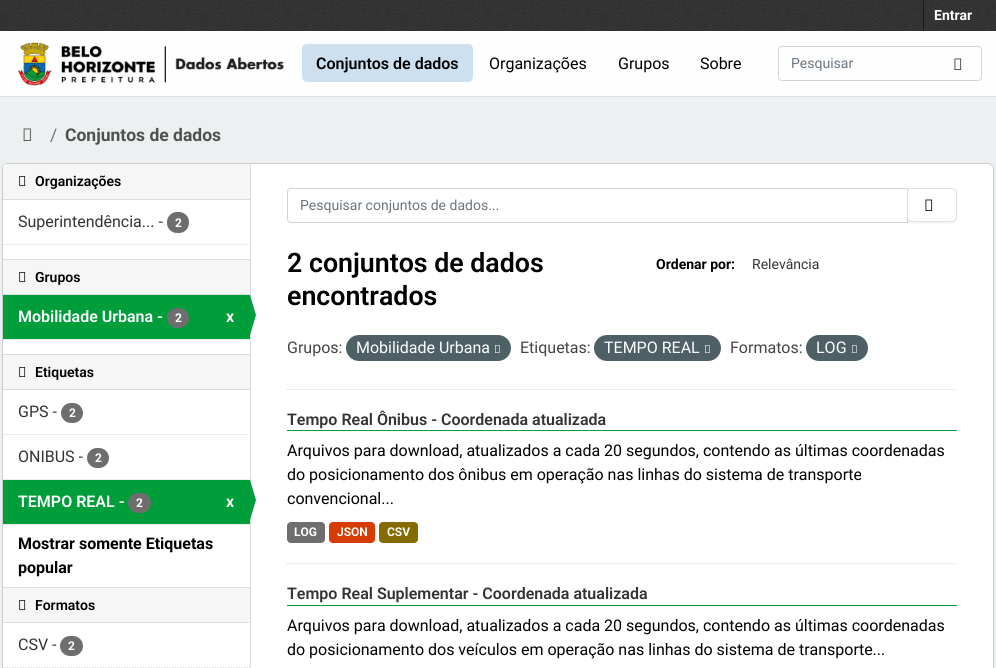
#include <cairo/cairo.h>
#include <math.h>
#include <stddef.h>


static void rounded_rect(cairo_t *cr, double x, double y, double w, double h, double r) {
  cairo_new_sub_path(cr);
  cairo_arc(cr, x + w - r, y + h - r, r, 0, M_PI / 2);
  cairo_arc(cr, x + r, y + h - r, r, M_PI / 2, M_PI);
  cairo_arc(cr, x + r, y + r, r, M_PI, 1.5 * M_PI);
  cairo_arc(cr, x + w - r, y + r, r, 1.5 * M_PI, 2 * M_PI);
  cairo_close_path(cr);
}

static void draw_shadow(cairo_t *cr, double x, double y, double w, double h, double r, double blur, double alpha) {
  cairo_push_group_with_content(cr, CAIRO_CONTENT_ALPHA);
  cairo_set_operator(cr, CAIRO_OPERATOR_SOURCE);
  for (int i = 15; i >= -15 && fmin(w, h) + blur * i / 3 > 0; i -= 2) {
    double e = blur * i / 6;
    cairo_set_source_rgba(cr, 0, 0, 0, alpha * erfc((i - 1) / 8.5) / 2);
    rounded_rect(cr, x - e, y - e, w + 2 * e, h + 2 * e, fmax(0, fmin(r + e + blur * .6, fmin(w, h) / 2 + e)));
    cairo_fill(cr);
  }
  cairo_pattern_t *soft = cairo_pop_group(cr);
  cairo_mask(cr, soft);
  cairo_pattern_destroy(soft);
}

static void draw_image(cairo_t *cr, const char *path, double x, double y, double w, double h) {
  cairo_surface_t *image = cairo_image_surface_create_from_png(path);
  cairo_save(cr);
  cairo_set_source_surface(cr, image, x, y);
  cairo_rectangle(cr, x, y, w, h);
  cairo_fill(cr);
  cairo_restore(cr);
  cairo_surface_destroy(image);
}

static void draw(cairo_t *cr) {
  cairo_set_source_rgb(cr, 236 / 255.0, 240 / 255.0, 241 / 255.0);
  cairo_paint(cr);
  cairo_set_source_rgb(cr, 51 / 255.0, 51 / 255.0, 51 / 255.0);
  cairo_rectangle(cr, 0, 0, 996, 31);
  cairo_fill(cr);
  draw_image(cr, "images/1.png", 0, 0, 996, 31);
  cairo_set_source_rgb(cr, 0, 35 / 255.0, 46 / 255.0);
  cairo_rectangle(cr, 923, 0, 1, 31);
  cairo_fill(cr);
  cairo_set_source_rgb(cr, 254 / 255.0, 254 / 255.0, 254 / 255.0);
  cairo_rectangle(cr, 0, 31, 996, 65);
  cairo_fill(cr);
  cairo_set_source_rgb(cr, 222 / 255.0, 226 / 255.0, 230 / 255.0);
  cairo_rectangle(cr, 0, 96, 996, 1);
  cairo_fill(cr);
  draw_image(cr, "images/2.png", 17, 42, 267, 44);
  cairo_set_source_rgb(cr, 204 / 255.0, 224 / 255.0, 239 / 255.0);
  rounded_rect(cr, 302, 44, 171, 38, 5);
  cairo_fill(cr);
  rounded_rect(cr, 778.5, 46.5, 203, 34, 3.5);
  cairo_set_source_rgb(cr, 206 / 255.0, 212 / 255.0, 218 / 255.0);
  cairo_set_line_width(cr, 1);
  cairo_stroke(cr);
  draw_image(cr, "images/3.png", 954, 58, 8, 12);
  draw_image(cr, "images/4.png", 23, 128, 8, 13);
  cairo_set_source_rgb(cr, 1, 1, 1);
  rounded_rect(cr, 2.5, 163.5, 991, 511, 5.5);
  cairo_fill_preserve(cr);
  cairo_set_source_rgb(cr, 204 / 255.0, 204 / 255.0, 204 / 255.0);
  cairo_stroke(cr);
  cairo_set_source_rgb(cr, 246 / 255.0, 246 / 255.0, 246 / 255.0);
  cairo_new_path(cr);
  cairo_move_to(cr, 6, 164);
  cairo_line_to(cr, 250, 164);
  cairo_line_to(cr, 250, 200);
  cairo_line_to(cr, 3, 200);
  cairo_line_to(cr, 3, 167);
  cairo_curve_to(cr, 3, 165.5, 4.5, 164, 6, 164);
  cairo_close_path(cr);
  cairo_fill(cr);
  cairo_set_source_rgb(cr, 221 / 255.0, 221 / 255.0, 221 / 255.0);
  cairo_rectangle(cr, 3, 199, 247, 1);
  cairo_fill(cr);
  draw_image(cr, "images/5.png", 19, 176, 7, 10);
  cairo_set_source_rgb(cr, 110 / 255.0, 110 / 255.0, 110 / 255.0);
  rounded_rect(cr, 167, 212, 22, 21, 10);
  cairo_fill(cr);
  cairo_new_path(cr);
  cairo_move_to(cr, 3, 244.5);
  cairo_line_to(cr, 250, 244.5);
  cairo_set_source_rgb(cr, 221 / 255.0, 221 / 255.0, 221 / 255.0);
  cairo_set_dash(cr, (double[]){1, 1}, 2, 0);
  cairo_stroke(cr);
  cairo_set_source_rgb(cr, 246 / 255.0, 246 / 255.0, 246 / 255.0);
  cairo_rectangle(cr, 3, 260, 247, 34);
  cairo_fill(cr);
  cairo_set_source_rgb(cr, 221 / 255.0, 221 / 255.0, 221 / 255.0);
  cairo_rectangle(cr, 3, 259, 247, 1);
  cairo_fill(cr);
  cairo_rectangle(cr, 3, 294, 247, 1);
  cairo_fill(cr);
  draw_image(cr, "images/5.png", 19, 272, 7, 10);
  cairo_set_source_rgb(cr, 0, 158 / 255.0, 59 / 255.0);
  cairo_rectangle(cr, 3, 295, 247, 44);
  cairo_fill(cr);
  cairo_set_source_rgb(cr, 110 / 255.0, 110 / 255.0, 110 / 255.0);
  rounded_rect(cr, 167, 308, 22, 20, 10);
  cairo_fill(cr);
  cairo_set_source_rgb(cr, 221 / 255.0, 221 / 255.0, 221 / 255.0);
  cairo_rectangle(cr, 250, 164, 1, 504);
  cairo_fill(cr);
  cairo_set_source_rgb(cr, 0, 158 / 255.0, 59 / 255.0);
  cairo_new_path(cr);
  cairo_move_to(cr, 250, 335);
  cairo_line_to(cr, 250, 295);
  cairo_line_to(cr, 256, 315);
  cairo_close_path(cr);
  cairo_fill(cr);
  cairo_new_path(cr);
  cairo_move_to(cr, 3, 339.5);
  cairo_line_to(cr, 250, 339.5);
  cairo_set_source_rgb(cr, 221 / 255.0, 221 / 255.0, 221 / 255.0);
  cairo_stroke(cr);
  cairo_set_source_rgb(cr, 246 / 255.0, 246 / 255.0, 246 / 255.0);
  cairo_rectangle(cr, 3, 355, 247, 34);
  cairo_fill(cr);
  cairo_set_source_rgb(cr, 221 / 255.0, 221 / 255.0, 221 / 255.0);
  cairo_rectangle(cr, 3, 354, 247, 1);
  cairo_fill(cr);
  cairo_rectangle(cr, 3, 389, 247, 1);
  cairo_fill(cr);
  draw_image(cr, "images/5.png", 19, 367, 7, 10);
  cairo_new_path(cr);
  cairo_move_to(cr, 3, 434.5);
  cairo_line_to(cr, 250, 434.5);
  cairo_stroke(cr);
  cairo_set_source_rgb(cr, 110 / 255.0, 110 / 255.0, 110 / 255.0);
  rounded_rect(cr, 61, 403, 22, 20, 10);
  cairo_fill(cr);
  cairo_new_path(cr);
  cairo_move_to(cr, 3, 479.5);
  cairo_line_to(cr, 250, 479.5);
  cairo_set_source_rgb(cr, 221 / 255.0, 221 / 255.0, 221 / 255.0);
  cairo_stroke(cr);
  cairo_set_source_rgb(cr, 110 / 255.0, 110 / 255.0, 110 / 255.0);
  rounded_rect(cr, 87, 448, 22, 20, 10);
  cairo_fill(cr);
  cairo_set_source_rgb(cr, 0, 158 / 255.0, 59 / 255.0);
  cairo_rectangle(cr, 3, 480, 247, 44);
  cairo_fill(cr);
  cairo_set_source_rgb(cr, 110 / 255.0, 110 / 255.0, 110 / 255.0);
  rounded_rect(cr, 128, 493, 23, 20, 10);
  cairo_fill(cr);
  cairo_set_source_rgb(cr, 0, 158 / 255.0, 59 / 255.0);
  cairo_new_path(cr);
  cairo_move_to(cr, 250, 520);
  cairo_line_to(cr, 250, 480);
  cairo_line_to(cr, 256, 500);
  cairo_close_path(cr);
  cairo_fill(cr);
  cairo_new_path(cr);
  cairo_move_to(cr, 3, 524.5);
  cairo_line_to(cr, 250, 524.5);
  cairo_set_source_rgb(cr, 221 / 255.0, 221 / 255.0, 221 / 255.0);
  cairo_stroke(cr);
  cairo_set_source_rgb(cr, 246 / 255.0, 246 / 255.0, 246 / 255.0);
  cairo_rectangle(cr, 3, 588, 247, 34);
  cairo_fill(cr);
  cairo_set_source_rgb(cr, 221 / 255.0, 221 / 255.0, 221 / 255.0);
  cairo_rectangle(cr, 3, 587, 247, 1);
  cairo_fill(cr);
  cairo_rectangle(cr, 3, 622, 247, 1);
  cairo_fill(cr);
  draw_image(cr, "images/5.png", 19, 600, 7, 10);
  cairo_new_path(cr);
  cairo_move_to(cr, 3, 667.5);
  cairo_line_to(cr, 250, 667.5);
  cairo_stroke(cr);
  cairo_set_source_rgb(cr, 110 / 255.0, 110 / 255.0, 110 / 255.0);
  rounded_rect(cr, 60, 636, 23, 20, 10);
  cairo_fill(cr);
  cairo_new_path(cr);
  cairo_move_to(cr, 287, 389.5);
  cairo_line_to(cr, 957, 389.5);
  cairo_set_source_rgb(cr, 221 / 255.0, 221 / 255.0, 221 / 255.0);
  cairo_stroke(cr);
  cairo_new_path(cr);
  cairo_move_to(cr, 291, 188.5);
  cairo_line_to(cr, 907.5, 188.5);
  cairo_line_to(cr, 907.5, 222.5);
  cairo_line_to(cr, 291, 222.5);
  cairo_curve_to(cr, 289, 222.5, 287.5, 221, 287.5, 219);
  cairo_line_to(cr, 287.5, 192);
  cairo_curve_to(cr, 287.5, 190, 289, 188.5, 291, 188.5);
  cairo_close_path(cr);
  cairo_set_source_rgb(cr, 206 / 255.0, 212 / 255.0, 218 / 255.0);
  cairo_set_dash(cr, NULL, 0, 0);
  cairo_stroke(cr);
  cairo_set_source_rgb(cr, 0, 0, 0);
  draw_shadow(cr, 907, 189, 50, 34, 5, 0.5, 0.07);
  cairo_set_source_rgb(cr, 1, 1, 1);
  rounded_rect(cr, 907.5, 188.5, 49, 33, 4.5);
  cairo_fill_preserve(cr);
  cairo_set_source_rgb(cr, 222 / 255.0, 226 / 255.0, 230 / 255.0);
  cairo_stroke(cr);
  draw_image(cr, "images/6.png", 925, 199, 8, 12);
  cairo_set_source_rgb(cr, 78 / 255.0, 95 / 255.0, 101 / 255.0);
  rounded_rect(cr, 346, 335, 165, 26, 13);
  cairo_fill(cr);
  draw_image(cr, "images/7.png", 495, 345, 5, 8);
  rounded_rect(cr, 594, 335, 127, 26, 13);
  cairo_fill(cr);
  draw_image(cr, "images/7.png", 705, 345, 5, 8);
  rounded_rect(cr, 806, 335, 62, 26, 13);
  cairo_fill(cr);
  draw_image(cr, "images/7.png", 852, 345, 5, 8);
  cairo_new_path(cr);
  cairo_move_to(cr, 287, 563.5);
  cairo_line_to(cr, 957, 563.5);
  cairo_set_source_rgb(cr, 221 / 255.0, 221 / 255.0, 221 / 255.0);
  cairo_set_dash(cr, (double[]){1, 1}, 2, 0);
  cairo_stroke(cr);
  cairo_set_source_rgb(cr, 0, 158 / 255.0, 59 / 255.0);
  cairo_rectangle(cr, 287, 430, 670, 1);
  cairo_fill(cr);
  cairo_set_source_rgb(cr, 110 / 255.0, 110 / 255.0, 110 / 255.0);
  rounded_rect(cr, 287, 522, 38, 21, 4);
  cairo_fill(cr);
  cairo_set_source_rgb(cr, 214 / 255.0, 59 / 255.0, 0);
  rounded_rect(cr, 329, 522, 46, 21, 4);
  cairo_fill(cr);
  cairo_set_source_rgb(cr, 133 / 255.0, 106 / 255.0, 0);
  rounded_rect(cr, 379, 522, 39, 21, 4);
  cairo_fill(cr);
  cairo_set_source_rgb(cr, 0, 158 / 255.0, 59 / 255.0);
  cairo_rectangle(cr, 287, 605, 670, 1);
  cairo_fill(cr);
  cairo_select_font_face(cr, "Roboto", CAIRO_FONT_SLANT_NORMAL, CAIRO_FONT_WEIGHT_BOLD);
  cairo_set_font_size(cr, 14);
  cairo_set_source_rgb(cr, 1, 1, 1);
  cairo_move_to(cr, 934, 20);
  cairo_show_text(cr, "Entrar");
  cairo_select_font_face(cr, "Roboto SemiBold", CAIRO_FONT_SLANT_NORMAL, CAIRO_FONT_WEIGHT_NORMAL);
  cairo_set_font_size(cr, 16);
  cairo_set_source_rgb(cr, 0, 0, 0);
  cairo_move_to(cr, 316, 69);
  cairo_show_text(cr, "Conjuntos de dados");
  cairo_select_font_face(cr, "Roboto", CAIRO_FONT_SLANT_NORMAL, CAIRO_FONT_WEIGHT_NORMAL);
  cairo_move_to(cr, 489, 69);
  cairo_show_text(cr, "Organizações");
  cairo_move_to(cr, 618, 69);
  cairo_show_text(cr, "Grupos");
  cairo_move_to(cr, 700, 69);
  cairo_show_text(cr, "Sobre");
  cairo_set_font_size(cr, 14);
  cairo_set_source_rgb(cr, 108 / 255.0, 117 / 255.0, 125 / 255.0);
  cairo_move_to(cr, 791, 68);
  cairo_show_text(cr, "Pesquisar");
  cairo_set_font_size(cr, 17.5);
  cairo_move_to(cr, 50, 141);
  cairo_show_text(cr, "/");
  cairo_select_font_face(cr, "Roboto", CAIRO_FONT_SLANT_NORMAL, CAIRO_FONT_WEIGHT_BOLD);
  cairo_set_source_rgb(cr, 80 / 255.0, 80 / 255.0, 80 / 255.0);
  cairo_move_to(cr, 65, 141);
  cairo_show_text(cr, "Conjuntos de dados");
  cairo_select_font_face(cr, "Roboto SemiBold", CAIRO_FONT_SLANT_NORMAL, CAIRO_FONT_WEIGHT_NORMAL);
  cairo_set_font_size(cr, 14);
  cairo_set_source_rgb(cr, 0, 0, 0);
  cairo_move_to(cr, 35, 186);
  cairo_show_text(cr, "Organizações");
  cairo_select_font_face(cr, "Roboto", CAIRO_FONT_SLANT_NORMAL, CAIRO_FONT_WEIGHT_NORMAL);
  cairo_set_font_size(cr, 16);
  cairo_set_source_rgb(cr, 51 / 255.0, 51 / 255.0, 51 / 255.0);
  cairo_move_to(cr, 18, 227);
  cairo_show_text(cr, "Superintendência... -");
  cairo_select_font_face(cr, "Roboto", CAIRO_FONT_SLANT_NORMAL, CAIRO_FONT_WEIGHT_BOLD);
  cairo_set_font_size(cr, 12);
  cairo_set_source_rgb(cr, 1, 1, 1);
  cairo_move_to(cr, 175, 227);
  cairo_show_text(cr, "2");
  cairo_select_font_face(cr, "Roboto SemiBold", CAIRO_FONT_SLANT_NORMAL, CAIRO_FONT_WEIGHT_NORMAL);
  cairo_set_font_size(cr, 14);
  cairo_set_source_rgb(cr, 0, 0, 0);
  cairo_move_to(cr, 35, 282);
  cairo_show_text(cr, "Grupos");
  cairo_set_font_size(cr, 16);
  cairo_set_source_rgb(cr, 1, 1, 1);
  cairo_move_to(cr, 18, 322);
  cairo_show_text(cr, "Mobilidade Urbana -");
  cairo_select_font_face(cr, "Roboto", CAIRO_FONT_SLANT_NORMAL, CAIRO_FONT_WEIGHT_BOLD);
  cairo_set_font_size(cr, 12);
  cairo_move_to(cr, 175, 322);
  cairo_show_text(cr, "2");
  cairo_select_font_face(cr, "Roboto SemiBold", CAIRO_FONT_SLANT_NORMAL, CAIRO_FONT_WEIGHT_NORMAL);
  cairo_set_font_size(cr, 16);
  cairo_move_to(cr, 226, 322);
  cairo_show_text(cr, "x");
  cairo_set_font_size(cr, 14);
  cairo_set_source_rgb(cr, 0, 0, 0);
  cairo_move_to(cr, 35, 377);
  cairo_show_text(cr, "Etiquetas");
  cairo_select_font_face(cr, "Roboto", CAIRO_FONT_SLANT_NORMAL, CAIRO_FONT_WEIGHT_NORMAL);
  cairo_set_font_size(cr, 16);
  cairo_set_source_rgb(cr, 51 / 255.0, 51 / 255.0, 51 / 255.0);
  cairo_move_to(cr, 18, 417);
  cairo_show_text(cr, "GPS -");
  cairo_select_font_face(cr, "Roboto", CAIRO_FONT_SLANT_NORMAL, CAIRO_FONT_WEIGHT_BOLD);
  cairo_set_font_size(cr, 12);
  cairo_set_source_rgb(cr, 1, 1, 1);
  cairo_move_to(cr, 69, 417);
  cairo_show_text(cr, "2");
  cairo_select_font_face(cr, "Roboto", CAIRO_FONT_SLANT_NORMAL, CAIRO_FONT_WEIGHT_NORMAL);
  cairo_set_font_size(cr, 16);
  cairo_set_source_rgb(cr, 51 / 255.0, 51 / 255.0, 51 / 255.0);
  cairo_move_to(cr, 18, 462);
  cairo_show_text(cr, "ONIBUS -");
  cairo_select_font_face(cr, "Roboto", CAIRO_FONT_SLANT_NORMAL, CAIRO_FONT_WEIGHT_BOLD);
  cairo_set_font_size(cr, 12);
  cairo_set_source_rgb(cr, 1, 1, 1);
  cairo_move_to(cr, 95, 462);
  cairo_show_text(cr, "2");
  cairo_select_font_face(cr, "Roboto SemiBold", CAIRO_FONT_SLANT_NORMAL, CAIRO_FONT_WEIGHT_NORMAL);
  cairo_set_font_size(cr, 16);
  cairo_move_to(cr, 18, 507);
  cairo_show_text(cr, "TEMPO REAL -");
  cairo_select_font_face(cr, "Roboto", CAIRO_FONT_SLANT_NORMAL, CAIRO_FONT_WEIGHT_BOLD);
  cairo_set_font_size(cr, 12);
  cairo_move_to(cr, 136, 507);
  cairo_show_text(cr, "2");
  cairo_select_font_face(cr, "Roboto SemiBold", CAIRO_FONT_SLANT_NORMAL, CAIRO_FONT_WEIGHT_NORMAL);
  cairo_set_font_size(cr, 16);
  cairo_move_to(cr, 226, 507);
  cairo_show_text(cr, "x");
  cairo_select_font_face(cr, "Roboto", CAIRO_FONT_SLANT_NORMAL, CAIRO_FONT_WEIGHT_BOLD);
  cairo_set_source_rgb(cr, 0, 0, 0);
  cairo_move_to(cr, 18, 549);
  cairo_show_text(cr, "Mostrar somente Etiquetas");
  cairo_move_to(cr, 18, 573);
  cairo_show_text(cr, "popular");
  cairo_select_font_face(cr, "Roboto SemiBold", CAIRO_FONT_SLANT_NORMAL, CAIRO_FONT_WEIGHT_NORMAL);
  cairo_set_font_size(cr, 14);
  cairo_move_to(cr, 35, 610);
  cairo_show_text(cr, "Formatos");
  cairo_select_font_face(cr, "Roboto", CAIRO_FONT_SLANT_NORMAL, CAIRO_FONT_WEIGHT_NORMAL);
  cairo_set_font_size(cr, 16);
  cairo_set_source_rgb(cr, 51 / 255.0, 51 / 255.0, 51 / 255.0);
  cairo_move_to(cr, 18, 650);
  cairo_show_text(cr, "CSV -");
  cairo_select_font_face(cr, "Roboto", CAIRO_FONT_SLANT_NORMAL, CAIRO_FONT_WEIGHT_BOLD);
  cairo_set_font_size(cr, 12);
  cairo_set_source_rgb(cr, 1, 1, 1);
  cairo_move_to(cr, 68, 650);
  cairo_show_text(cr, "2");
  cairo_select_font_face(cr, "Roboto", CAIRO_FONT_SLANT_NORMAL, CAIRO_FONT_WEIGHT_NORMAL);
  cairo_set_font_size(cr, 14);
  cairo_set_source_rgb(cr, 108 / 255.0, 117 / 255.0, 125 / 255.0);
  cairo_move_to(cr, 300, 210);
  cairo_show_text(cr, "Pesquisar conjuntos de dados...");
  cairo_select_font_face(cr, "Roboto SemiBold", CAIRO_FONT_SLANT_NORMAL, CAIRO_FONT_WEIGHT_NORMAL);
  cairo_set_font_size(cr, 26.75);
  cairo_set_source_rgb(cr, 0, 0, 0);
  cairo_move_to(cr, 287, 272);
  cairo_show_text(cr, "2 conjuntos de dados");
  cairo_move_to(cr, 287, 305);
  cairo_show_text(cr, "encontrados");
  cairo_select_font_face(cr, "Roboto", CAIRO_FONT_SLANT_NORMAL, CAIRO_FONT_WEIGHT_BOLD);
  cairo_set_font_size(cr, 14);
  cairo_move_to(cr, 656, 269);
  cairo_show_text(cr, "Ordenar por:");
  cairo_select_font_face(cr, "Roboto", CAIRO_FONT_SLANT_NORMAL, CAIRO_FONT_WEIGHT_NORMAL);
  cairo_set_source_rgb(cr, 51 / 255.0, 51 / 255.0, 51 / 255.0);
  cairo_move_to(cr, 752, 269);
  cairo_show_text(cr, "Relevância");
  cairo_set_font_size(cr, 16);
  cairo_set_source_rgb(cr, 68 / 255.0, 68 / 255.0, 68 / 255.0);
  cairo_move_to(cr, 287, 353);
  cairo_show_text(cr, "Grupos:");
  cairo_set_source_rgb(cr, 1, 1, 1);
  cairo_move_to(cr, 356, 353);
  cairo_show_text(cr, "Mobilidade Urbana");
  cairo_set_source_rgb(cr, 68 / 255.0, 68 / 255.0, 68 / 255.0);
  cairo_move_to(cr, 520, 353);
  cairo_show_text(cr, "Etiquetas:");
  cairo_set_source_rgb(cr, 1, 1, 1);
  cairo_move_to(cr, 604, 353);
  cairo_show_text(cr, "TEMPO REAL");
  cairo_set_source_rgb(cr, 68 / 255.0, 68 / 255.0, 68 / 255.0);
  cairo_move_to(cr, 730, 353);
  cairo_show_text(cr, "Formatos:");
  cairo_set_source_rgb(cr, 1, 1, 1);
  cairo_move_to(cr, 816, 353);
  cairo_show_text(cr, "LOG");
  cairo_select_font_face(cr, "Roboto SemiBold", CAIRO_FONT_SLANT_NORMAL, CAIRO_FONT_WEIGHT_NORMAL);
  cairo_set_source_rgb(cr, 51 / 255.0, 51 / 255.0, 51 / 255.0);
  cairo_move_to(cr, 287, 425);
  cairo_show_text(cr, "Tempo Real Ônibus - Coordenada atualizada");
  cairo_select_font_face(cr, "Roboto", CAIRO_FONT_SLANT_NORMAL, CAIRO_FONT_WEIGHT_NORMAL);
  cairo_set_source_rgb(cr, 0, 0, 0);
  cairo_move_to(cr, 287, 456);
  cairo_show_text(cr, "Arquivos para download, atualizados a cada 20 segundos, contendo as últimas coordenadas");
  cairo_move_to(cr, 287, 480);
  cairo_show_text(cr, "do posicionamento dos ônibus em operação nas linhas do sistema de transporte");
  cairo_move_to(cr, 287, 504);
  cairo_show_text(cr, "convencional...");
  cairo_select_font_face(cr, "Roboto", CAIRO_FONT_SLANT_NORMAL, CAIRO_FONT_WEIGHT_BOLD);
  cairo_set_font_size(cr, 12);
  cairo_set_source_rgb(cr, 1, 1, 1);
  cairo_move_to(cr, 294, 536);
  cairo_show_text(cr, "LOG");
  cairo_move_to(cr, 337, 536);
  cairo_show_text(cr, "JSON");
  cairo_move_to(cr, 387, 536);
  cairo_show_text(cr, "CSV");
  cairo_select_font_face(cr, "Roboto SemiBold", CAIRO_FONT_SLANT_NORMAL, CAIRO_FONT_WEIGHT_NORMAL);
  cairo_set_font_size(cr, 16);
  cairo_set_source_rgb(cr, 51 / 255.0, 51 / 255.0, 51 / 255.0);
  cairo_move_to(cr, 287, 599);
  cairo_show_text(cr, "Tempo Real Suplementar - Coordenada atualizada");
  cairo_select_font_face(cr, "Roboto", CAIRO_FONT_SLANT_NORMAL, CAIRO_FONT_WEIGHT_NORMAL);
  cairo_set_source_rgb(cr, 0, 0, 0);
  cairo_move_to(cr, 287, 631);
  cairo_show_text(cr, "Arquivos para download, atualizados a cada 20 segundos, contendo as últimas coordenadas");
  cairo_move_to(cr, 287, 655);
  cairo_show_text(cr, "do posicionamento dos veículos em operação nas linhas do sistema de transporte...");
}

int main(void) {
  cairo_surface_t *surface = cairo_image_surface_create(CAIRO_FORMAT_RGB24, 996, 668);
  cairo_t *cr = cairo_create(surface);
  cairo_font_options_t *options = cairo_font_options_create();
  cairo_font_options_set_hint_metrics(options, CAIRO_HINT_METRICS_OFF);
  cairo_font_options_set_hint_style(options, CAIRO_HINT_STYLE_NONE);
  cairo_set_font_options(cr, options);
  cairo_set_miter_limit(cr, 4);
  draw(cr);
  cairo_surface_write_to_png(surface, "out.png");
  cairo_font_options_destroy(options);
  cairo_destroy(cr);
  cairo_surface_destroy(surface);
  return 0;
}
